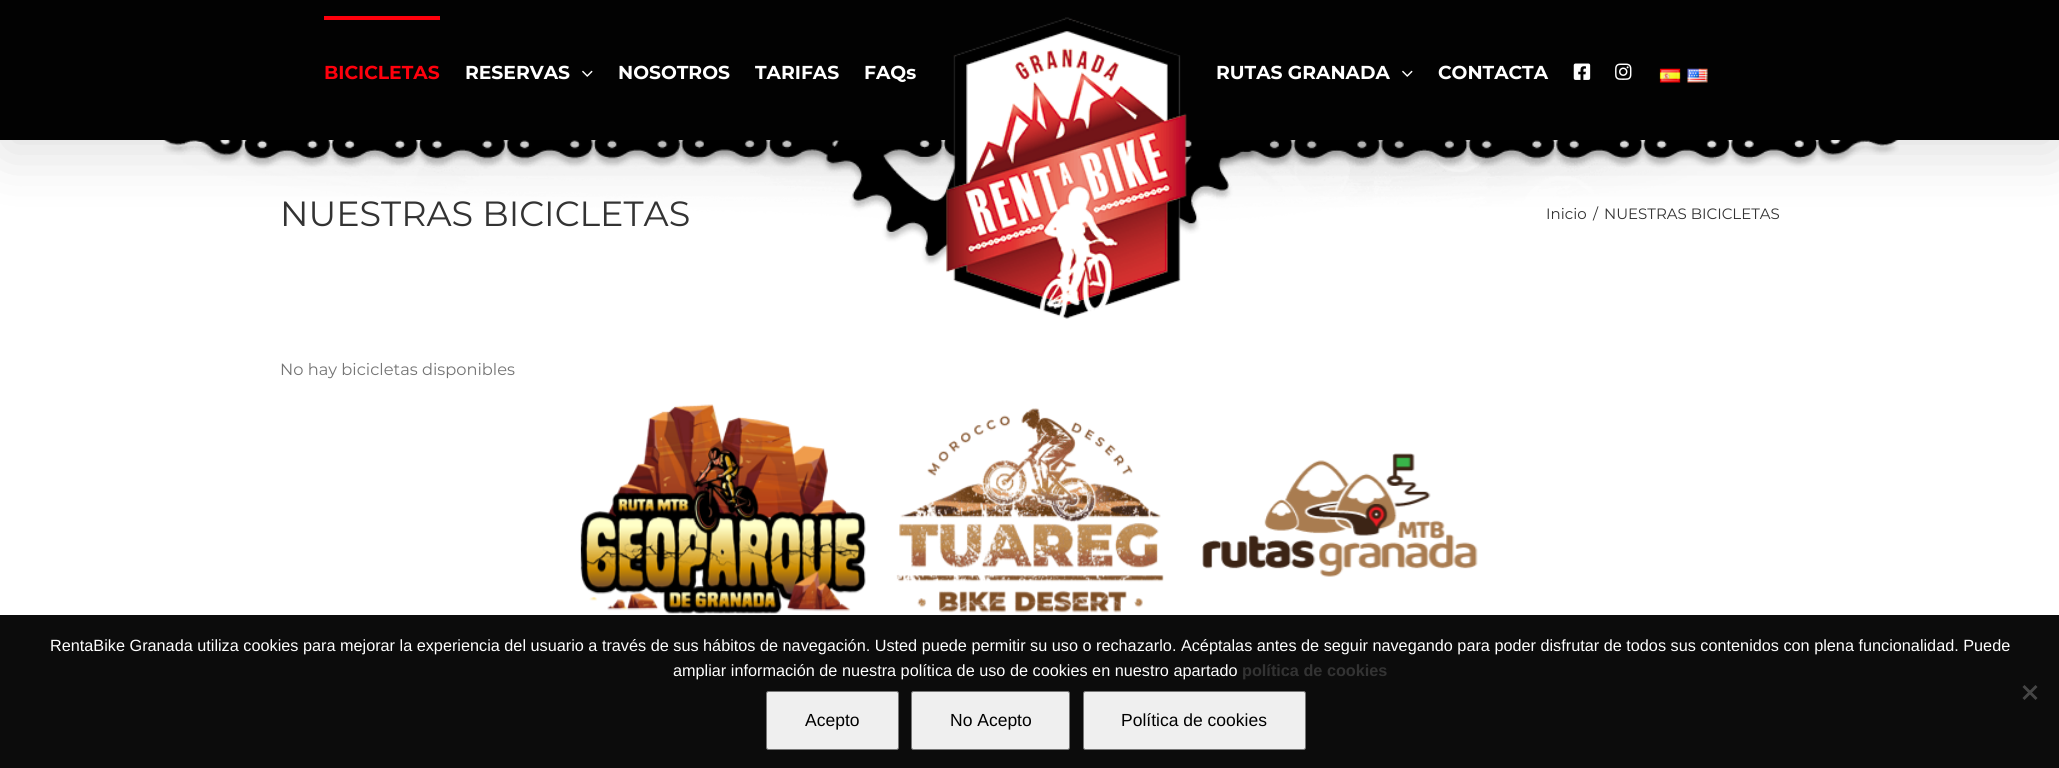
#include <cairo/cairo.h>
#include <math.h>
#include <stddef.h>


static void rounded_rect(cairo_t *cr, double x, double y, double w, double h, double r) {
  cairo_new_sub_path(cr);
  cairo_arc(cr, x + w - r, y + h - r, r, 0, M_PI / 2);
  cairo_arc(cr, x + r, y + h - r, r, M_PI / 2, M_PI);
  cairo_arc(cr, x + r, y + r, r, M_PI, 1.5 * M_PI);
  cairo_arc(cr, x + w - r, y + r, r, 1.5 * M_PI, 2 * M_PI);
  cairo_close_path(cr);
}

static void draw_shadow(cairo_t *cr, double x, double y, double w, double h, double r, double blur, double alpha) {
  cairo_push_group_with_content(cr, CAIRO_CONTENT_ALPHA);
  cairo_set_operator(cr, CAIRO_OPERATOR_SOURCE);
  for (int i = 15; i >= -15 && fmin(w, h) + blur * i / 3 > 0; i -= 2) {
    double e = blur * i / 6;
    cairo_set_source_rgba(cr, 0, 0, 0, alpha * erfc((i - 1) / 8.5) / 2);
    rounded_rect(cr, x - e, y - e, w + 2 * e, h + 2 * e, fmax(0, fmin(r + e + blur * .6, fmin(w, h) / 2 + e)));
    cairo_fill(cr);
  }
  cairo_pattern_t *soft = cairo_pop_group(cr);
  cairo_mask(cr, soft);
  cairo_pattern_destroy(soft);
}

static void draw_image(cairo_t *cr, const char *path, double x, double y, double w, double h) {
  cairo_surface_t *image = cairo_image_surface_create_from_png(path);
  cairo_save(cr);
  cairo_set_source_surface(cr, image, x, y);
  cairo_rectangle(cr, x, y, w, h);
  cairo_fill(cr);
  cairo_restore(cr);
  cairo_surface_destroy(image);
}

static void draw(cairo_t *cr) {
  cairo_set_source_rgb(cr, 1, 1, 1);
  cairo_paint(cr);
  draw_image(cr, "images/7.png", 163, 140, 1736, 136);
  cairo_set_source_rgb(cr, 0, 0, 0);
  draw_shadow(cr, 3, 15, 2055, 135, 0, 31, 0.14);
  cairo_set_source_rgb(cr, 2 / 255.0, 2 / 255.0, 2 / 255.0);
  cairo_rectangle(cr, 0, 0, 2059, 140);
  cairo_fill(cr);
  cairo_set_source_rgb(cr, 1, 0, 12 / 255.0);
  cairo_rectangle(cr, 324, 16, 116, 4);
  cairo_fill(cr);
  draw_image(cr, "images/1.png", 582, 70, 11, 7);
  draw_image(cr, "images/2.png", 946, 17, 241, 302);
  draw_image(cr, "images/1.png", 1402, 70, 11, 7);
  draw_image(cr, "images/3.png", 1573, 63, 18, 17);
  draw_image(cr, "images/4.png", 1615, 63, 17, 17);
  draw_image(cr, "images/5.png", 1659, 68, 22, 15);
  draw_image(cr, "images/6.png", 1687, 68, 21, 15);
  draw_image(cr, "images/8.png", 580, 404, 286, 210);
  draw_image(cr, "images/9.png", 896, 408, 268, 205);
  draw_image(cr, "images/10.png", 1202, 453, 276, 124);
  cairo_set_source_rgb(cr, 12 / 255.0, 12 / 255.0, 12 / 255.0);
  cairo_rectangle(cr, 0, 615, 2059, 153);
  cairo_fill(cr);
  cairo_set_source_rgb(cr, 70 / 255.0, 70 / 255.0, 70 / 255.0);
  cairo_new_path(cr);
  cairo_move_to(cr, 2035.5, 685);
  cairo_line_to(cr, 2037.5, 687);
  cairo_line_to(cr, 2024.5, 700);
  cairo_line_to(cr, 2022.5, 698);
  cairo_close_path(cr);
  cairo_fill(cr);
  cairo_new_path(cr);
  cairo_move_to(cr, 2022.5, 687);
  cairo_line_to(cr, 2024.5, 685);
  cairo_line_to(cr, 2037.5, 698);
  cairo_line_to(cr, 2035.5, 700);
  cairo_close_path(cr);
  cairo_fill(cr);
  cairo_set_source_rgb(cr, 239 / 255.0, 239 / 255.0, 239 / 255.0);
  rounded_rect(cr, 766.5, 691.5, 132, 58, 2);
  cairo_fill_preserve(cr);
  cairo_set_source_rgb(cr, 118 / 255.0, 118 / 255.0, 118 / 255.0);
  cairo_set_line_width(cr, 1);
  cairo_stroke(cr);
  cairo_set_source_rgb(cr, 239 / 255.0, 239 / 255.0, 239 / 255.0);
  rounded_rect(cr, 911.5, 691.5, 158, 58, 2);
  cairo_fill_preserve(cr);
  cairo_set_source_rgb(cr, 118 / 255.0, 118 / 255.0, 118 / 255.0);
  cairo_stroke(cr);
  cairo_set_source_rgb(cr, 239 / 255.0, 239 / 255.0, 239 / 255.0);
  rounded_rect(cr, 1083.5, 691.5, 222, 58, 2);
  cairo_fill_preserve(cr);
  cairo_set_source_rgb(cr, 118 / 255.0, 118 / 255.0, 118 / 255.0);
  cairo_stroke(cr);
  cairo_select_font_face(cr, "Montserrat", CAIRO_FONT_SLANT_NORMAL, CAIRO_FONT_WEIGHT_BOLD);
  cairo_set_font_size(cr, 18.75);
  cairo_set_source_rgb(cr, 1, 0, 12 / 255.0);
  cairo_move_to(cr, 324, 79);
  cairo_show_text(cr, "BICICLETAS");
  cairo_set_source_rgb(cr, 1, 1, 1);
  cairo_move_to(cr, 465, 79);
  cairo_show_text(cr, "RESERVAS");
  cairo_move_to(cr, 618, 79);
  cairo_show_text(cr, "NOSOTROS");
  cairo_move_to(cr, 755, 79);
  cairo_show_text(cr, "TARIFAS");
  cairo_move_to(cr, 864, 79);
  cairo_show_text(cr, "FAQs");
  cairo_move_to(cr, 1216, 79);
  cairo_show_text(cr, "RUTAS GRANADA");
  cairo_move_to(cr, 1438, 79);
  cairo_show_text(cr, "CONTACTA");
  cairo_select_font_face(cr, "Montserrat", CAIRO_FONT_SLANT_NORMAL, CAIRO_FONT_WEIGHT_NORMAL);
  cairo_set_font_size(cr, 35);
  cairo_set_source_rgb(cr, 51 / 255.0, 51 / 255.0, 51 / 255.0);
  cairo_move_to(cr, 280, 226);
  cairo_show_text(cr, "NUESTRAS BICICLETAS");
  cairo_set_font_size(cr, 15);
  cairo_move_to(cr, 1546, 219);
  cairo_show_text(cr, "Inicio");
  cairo_move_to(cr, 1593, 219);
  cairo_show_text(cr, "/");
  cairo_move_to(cr, 1604, 219);
  cairo_show_text(cr, "NUESTRAS BICICLETAS");
  cairo_set_font_size(cr, 16.25);
  cairo_set_source_rgb(cr, 116 / 255.0, 116 / 255.0, 116 / 255.0);
  cairo_move_to(cr, 280, 375);
  cairo_show_text(cr, "No hay bicicletas disponibles");
  cairo_select_font_face(cr, "Liberation Sans", CAIRO_FONT_SLANT_NORMAL, CAIRO_FONT_WEIGHT_NORMAL);
  cairo_set_source_rgb(cr, 1, 1, 1);
  cairo_move_to(cr, 50, 651);
  cairo_show_text(cr, "RentaBike Granada utiliza cookies para mejorar la experiencia del usuario a través de sus hábitos de navegación. Usted puede permitir su uso o rechazarlo. Acéptalas antes de seguir navegando para poder disfrutar de todos sus contenidos con plena funcionalidad. Puede");
  cairo_move_to(cr, 673, 676);
  cairo_show_text(cr, "ampliar información de nuestra política de uso de cookies en nuestro apartado");
  cairo_select_font_face(cr, "Liberation Sans", CAIRO_FONT_SLANT_NORMAL, CAIRO_FONT_WEIGHT_BOLD);
  cairo_set_source_rgb(cr, 51 / 255.0, 51 / 255.0, 51 / 255.0);
  cairo_move_to(cr, 1242, 676);
  cairo_show_text(cr, "política de cookies");
  cairo_select_font_face(cr, "Liberation Sans", CAIRO_FONT_SLANT_NORMAL, CAIRO_FONT_WEIGHT_NORMAL);
  cairo_set_font_size(cr, 17.5);
  cairo_set_source_rgb(cr, 0, 0, 0);
  cairo_move_to(cr, 805, 726);
  cairo_show_text(cr, "Acepto");
  cairo_move_to(cr, 950, 726);
  cairo_show_text(cr, "No Acepto");
  cairo_move_to(cr, 1121, 726);
  cairo_show_text(cr, "Política de cookies");
}

int main(void) {
  cairo_surface_t *surface = cairo_image_surface_create(CAIRO_FORMAT_RGB24, 2059, 768);
  cairo_t *cr = cairo_create(surface);
  cairo_font_options_t *options = cairo_font_options_create();
  cairo_font_options_set_hint_metrics(options, CAIRO_HINT_METRICS_OFF);
  cairo_font_options_set_hint_style(options, CAIRO_HINT_STYLE_NONE);
  cairo_set_font_options(cr, options);
  cairo_set_miter_limit(cr, 4);
  draw(cr);
  cairo_surface_write_to_png(surface, "out.png");
  cairo_font_options_destroy(options);
  cairo_destroy(cr);
  cairo_surface_destroy(surface);
  return 0;
}
